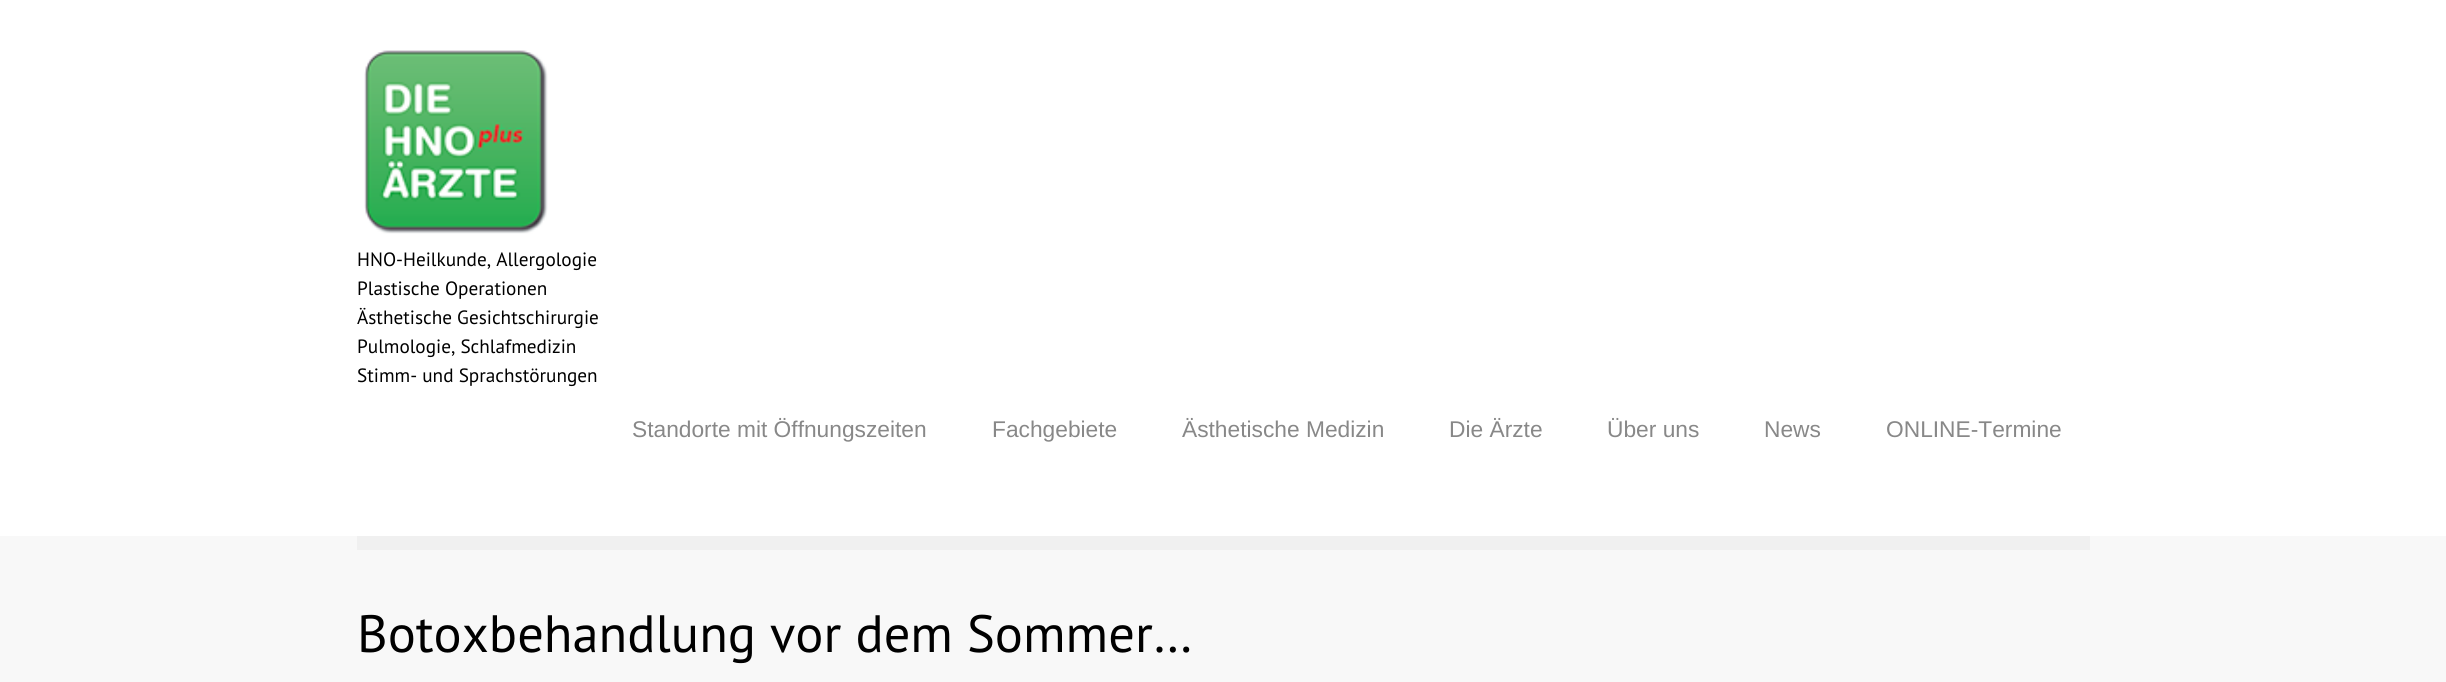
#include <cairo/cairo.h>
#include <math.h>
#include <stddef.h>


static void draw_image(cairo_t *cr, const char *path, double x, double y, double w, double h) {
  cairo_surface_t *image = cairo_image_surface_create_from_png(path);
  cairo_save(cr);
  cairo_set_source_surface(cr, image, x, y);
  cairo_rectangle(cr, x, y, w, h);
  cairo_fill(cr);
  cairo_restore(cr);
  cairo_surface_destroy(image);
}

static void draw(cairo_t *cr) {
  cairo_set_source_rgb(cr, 248 / 255.0, 248 / 255.0, 248 / 255.0);
  cairo_paint(cr);
  cairo_set_source_rgb(cr, 1, 1, 1);
  cairo_rectangle(cr, 0, 0, 2446, 536);
  cairo_fill(cr);
  draw_image(cr, "images/1.png", 364, 50, 184, 184);
  cairo_set_source_rgb(cr, 240 / 255.0, 240 / 255.0, 240 / 255.0);
  cairo_rectangle(cr, 357, 536, 1733, 14);
  cairo_fill(cr);
  cairo_select_font_face(cr, "PT Sans", CAIRO_FONT_SLANT_NORMAL, CAIRO_FONT_WEIGHT_NORMAL);
  cairo_set_font_size(cr, 19.25);
  cairo_set_source_rgb(cr, 0, 0, 0);
  cairo_move_to(cr, 357, 266);
  cairo_show_text(cr, "HNO-Heilkunde, Allergologie");
  cairo_move_to(cr, 357, 295);
  cairo_show_text(cr, "Plastische Operationen");
  cairo_move_to(cr, 357, 324);
  cairo_show_text(cr, "Ästhetische Gesichtschirurgie");
  cairo_move_to(cr, 357, 353);
  cairo_show_text(cr, "Pulmologie, Schlafmedizin");
  cairo_move_to(cr, 357, 382);
  cairo_show_text(cr, "Stimm- und Sprachstörungen");
  cairo_select_font_face(cr, "Liberation Sans", CAIRO_FONT_SLANT_NORMAL, CAIRO_FONT_WEIGHT_NORMAL);
  cairo_set_font_size(cr, 22.75);
  cairo_set_source_rgb(cr, 136 / 255.0, 136 / 255.0, 136 / 255.0);
  cairo_move_to(cr, 632, 437);
  cairo_show_text(cr, "Standorte mit Öffnungszeiten");
  cairo_move_to(cr, 992, 437);
  cairo_show_text(cr, "Fachgebiete");
  cairo_move_to(cr, 1182, 437);
  cairo_show_text(cr, "Ästhetische Medizin");
  cairo_move_to(cr, 1449, 437);
  cairo_show_text(cr, "Die Ärzte");
  cairo_move_to(cr, 1607, 437);
  cairo_show_text(cr, "Über uns");
  cairo_move_to(cr, 1764, 437);
  cairo_show_text(cr, "News");
  cairo_move_to(cr, 1886, 437);
  cairo_show_text(cr, "ONLINE-Termine");
  cairo_select_font_face(cr, "PT Sans", CAIRO_FONT_SLANT_NORMAL, CAIRO_FONT_WEIGHT_NORMAL);
  cairo_set_font_size(cr, 52.5);
  cairo_set_source_rgb(cr, 0, 0, 0);
  cairo_move_to(cr, 357, 652);
  cairo_show_text(cr, "Botoxbehandlung vor dem Sommer…");
}

int main(void) {
  cairo_surface_t *surface = cairo_image_surface_create(CAIRO_FORMAT_RGB24, 2446, 682);
  cairo_t *cr = cairo_create(surface);
  cairo_font_options_t *options = cairo_font_options_create();
  cairo_font_options_set_hint_metrics(options, CAIRO_HINT_METRICS_OFF);
  cairo_font_options_set_hint_style(options, CAIRO_HINT_STYLE_NONE);
  cairo_set_font_options(cr, options);
  cairo_set_miter_limit(cr, 4);
  draw(cr);
  cairo_surface_write_to_png(surface, "out.png");
  cairo_font_options_destroy(options);
  cairo_destroy(cr);
  cairo_surface_destroy(surface);
  return 0;
}
